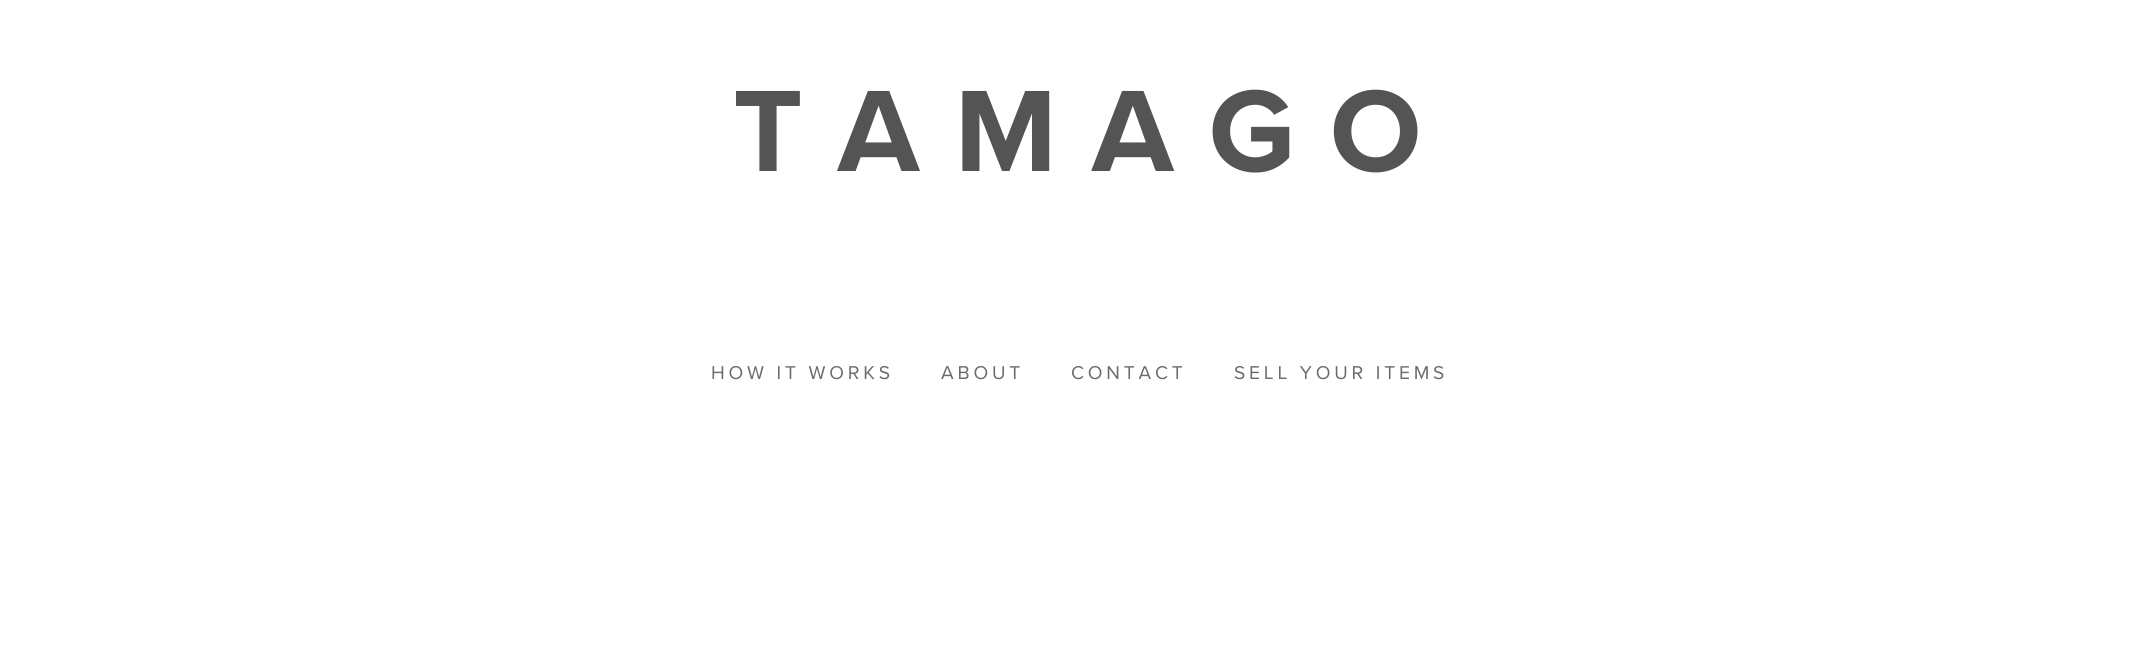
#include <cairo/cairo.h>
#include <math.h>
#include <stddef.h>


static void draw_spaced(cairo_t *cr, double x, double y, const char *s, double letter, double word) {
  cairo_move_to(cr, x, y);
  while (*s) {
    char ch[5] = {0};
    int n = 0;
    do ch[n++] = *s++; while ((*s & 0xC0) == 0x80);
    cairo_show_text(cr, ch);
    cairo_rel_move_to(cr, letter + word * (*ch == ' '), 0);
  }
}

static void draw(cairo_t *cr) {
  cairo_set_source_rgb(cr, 1, 1, 1);
  cairo_paint(cr);
  cairo_select_font_face(cr, "Proxima Nova", CAIRO_FONT_SLANT_NORMAL, CAIRO_FONT_WEIGHT_BOLD);
  cairo_set_font_size(cr, 120);
  cairo_set_source_rgb(cr, 84 / 255.0, 84 / 255.0, 84 / 255.0);
  draw_spaced(cr, 733, 171, "TAMAGO", 34.75, 0);
  cairo_select_font_face(cr, "Proxima Nova", CAIRO_FONT_SLANT_NORMAL, CAIRO_FONT_WEIGHT_NORMAL);
  cairo_set_font_size(cr, 19.25);
  cairo_set_source_rgb(cr, 107 / 255.0, 107 / 255.0, 107 / 255.0);
  draw_spaced(cr, 711, 379, "HOW IT WORKS", 3.8, 0);
  draw_spaced(cr, 941, 379, "ABOUT", 3.8, 0);
  draw_spaced(cr, 1071, 379, "CONTACT", 3.8, 0);
  draw_spaced(cr, 1234, 379, "SELL YOUR ITEMS", 3.8, 0);
}

int main(void) {
  cairo_surface_t *surface = cairo_image_surface_create(CAIRO_FORMAT_RGB24, 2155, 650);
  cairo_t *cr = cairo_create(surface);
  cairo_font_options_t *options = cairo_font_options_create();
  cairo_font_options_set_hint_metrics(options, CAIRO_HINT_METRICS_OFF);
  cairo_font_options_set_hint_style(options, CAIRO_HINT_STYLE_NONE);
  cairo_set_font_options(cr, options);
  cairo_set_miter_limit(cr, 4);
  draw(cr);
  cairo_surface_write_to_png(surface, "out.png");
  cairo_font_options_destroy(options);
  cairo_destroy(cr);
  cairo_surface_destroy(surface);
  return 0;
}
